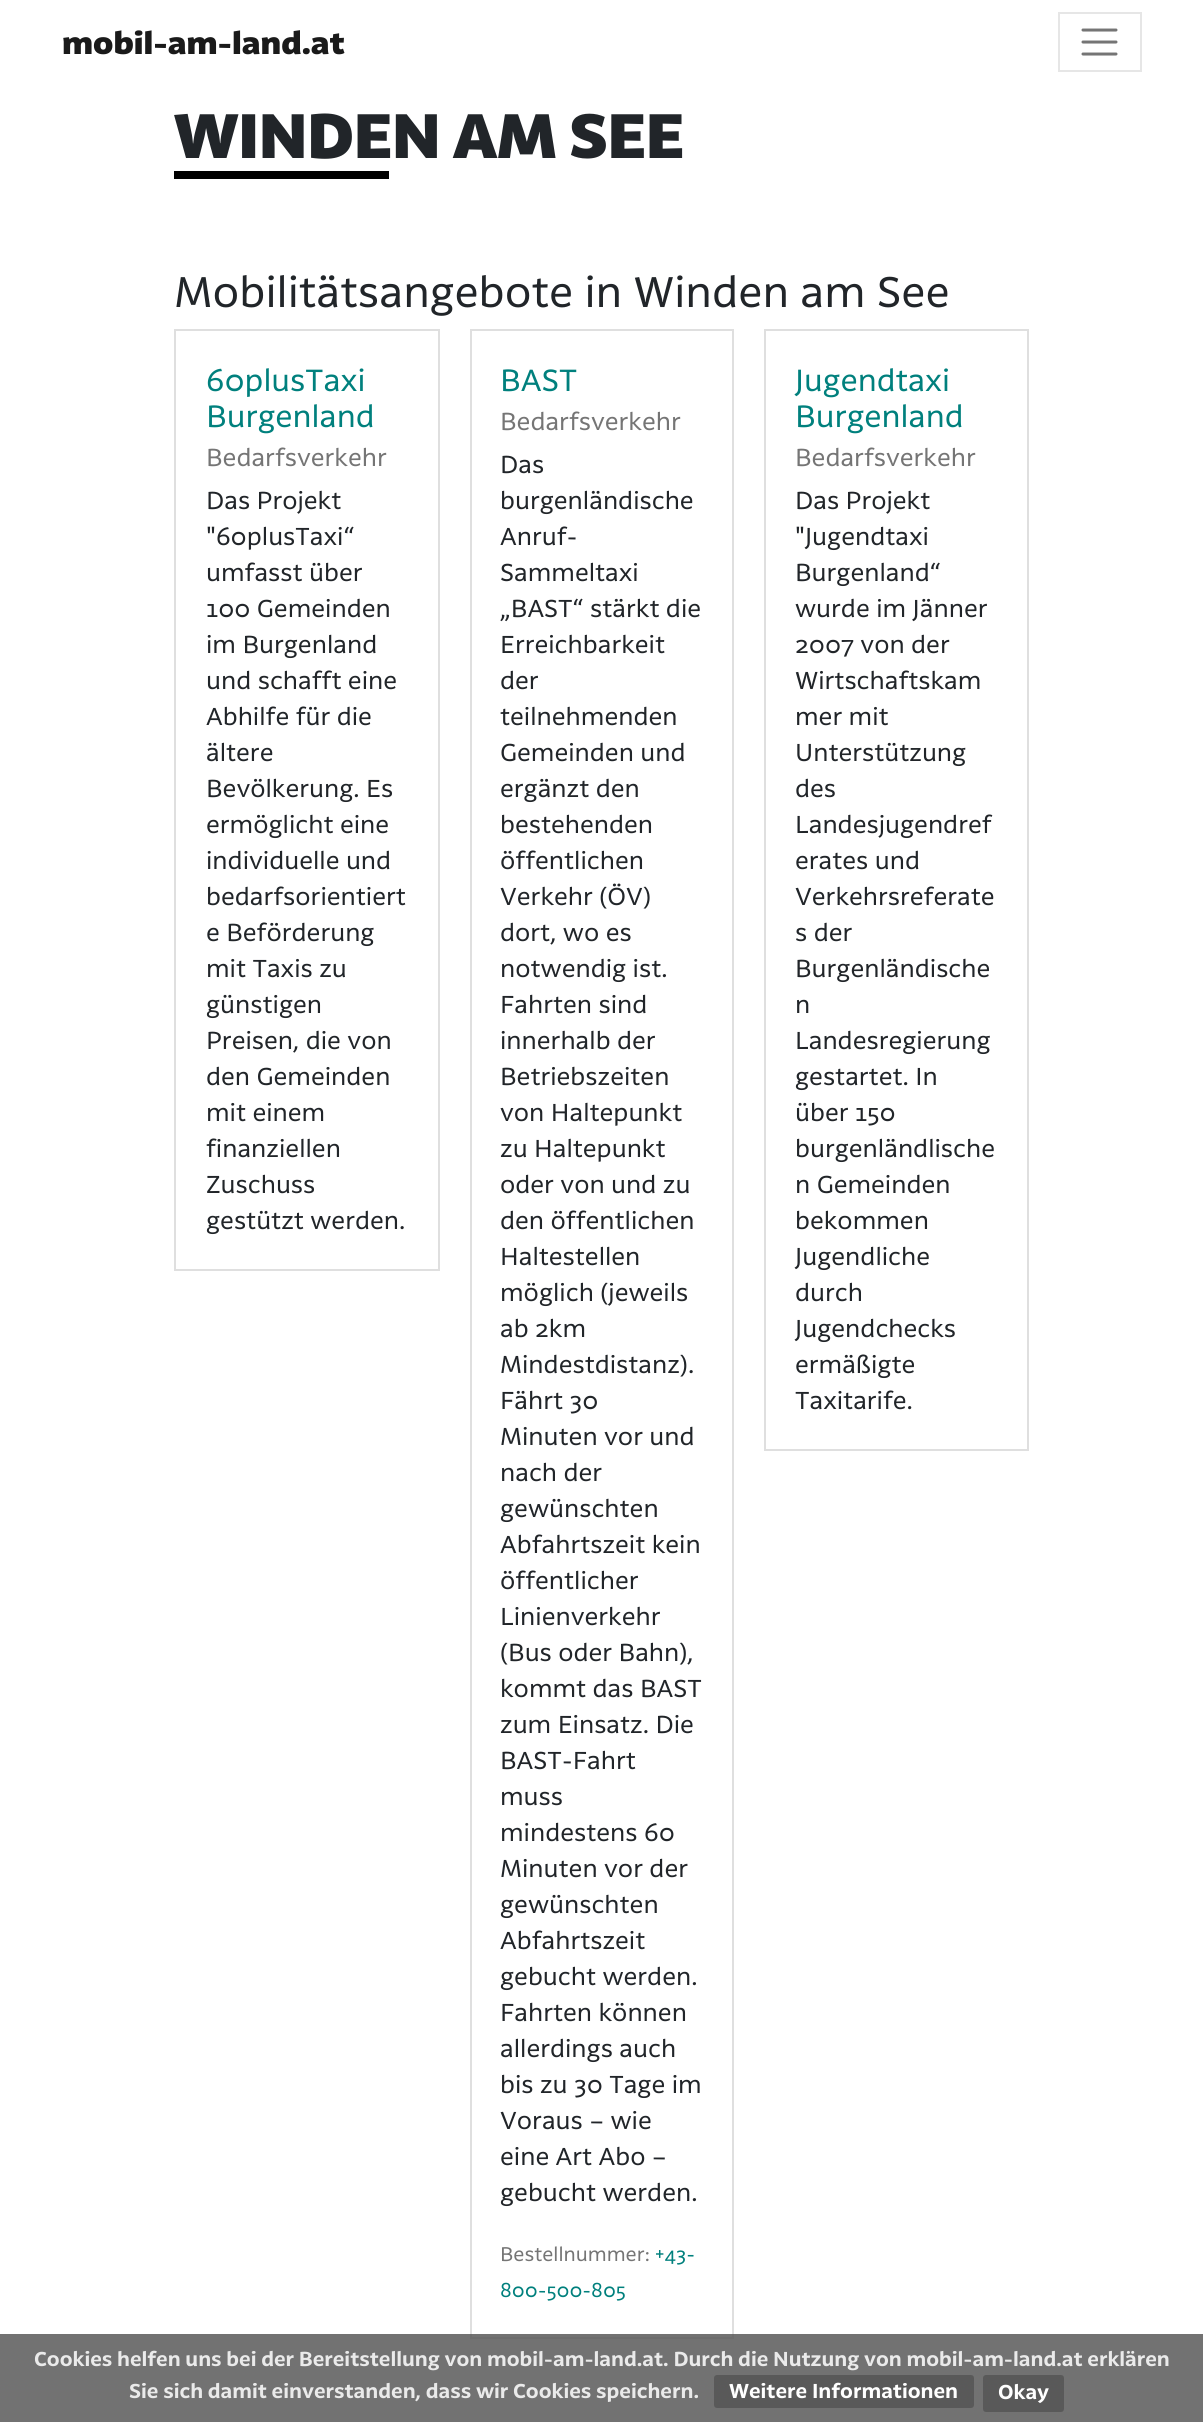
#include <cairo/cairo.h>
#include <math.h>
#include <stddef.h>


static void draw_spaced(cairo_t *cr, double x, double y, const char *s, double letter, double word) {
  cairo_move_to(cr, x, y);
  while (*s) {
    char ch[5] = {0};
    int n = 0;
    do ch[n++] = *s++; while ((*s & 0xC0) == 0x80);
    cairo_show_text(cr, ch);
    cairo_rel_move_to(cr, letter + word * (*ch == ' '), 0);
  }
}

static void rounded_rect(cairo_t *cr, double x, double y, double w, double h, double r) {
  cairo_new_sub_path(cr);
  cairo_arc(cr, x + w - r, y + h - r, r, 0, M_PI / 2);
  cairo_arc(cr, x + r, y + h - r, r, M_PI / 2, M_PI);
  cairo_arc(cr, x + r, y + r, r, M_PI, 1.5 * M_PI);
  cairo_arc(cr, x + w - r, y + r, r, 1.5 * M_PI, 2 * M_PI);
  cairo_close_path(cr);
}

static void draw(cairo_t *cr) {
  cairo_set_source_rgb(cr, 1, 1, 1);
  cairo_paint(cr);
  cairo_rectangle(cr, 1059, 13, 82, 58);
  cairo_set_source_rgb(cr, 230 / 255.0, 230 / 255.0, 230 / 255.0);
  cairo_stroke(cr);
  cairo_new_path(cr);
  cairo_move_to(cr, 1083, 30);
  cairo_line_to(cr, 1116, 30);
  cairo_move_to(cr, 1083, 42);
  cairo_line_to(cr, 1116, 42);
  cairo_move_to(cr, 1083, 54);
  cairo_line_to(cr, 1116, 54);
  cairo_set_source_rgb(cr, 117 / 255.0, 117 / 255.0, 117 / 255.0);
  cairo_set_line_width(cr, 3);
  cairo_set_line_cap(cr, CAIRO_LINE_CAP_ROUND);
  cairo_stroke(cr);
  cairo_set_source_rgb(cr, 0, 0, 0);
  cairo_rectangle(cr, 174, 171, 215, 8);
  cairo_fill(cr);
  cairo_rectangle(cr, 175, 330, 264, 940);
  cairo_set_source_rgb(cr, 223 / 255.0, 223 / 255.0, 223 / 255.0);
  cairo_set_line_width(cr, 2);
  cairo_set_line_cap(cr, CAIRO_LINE_CAP_BUTT);
  cairo_stroke(cr);
  cairo_rectangle(cr, 471, 330, 262, 2008);
  cairo_stroke(cr);
  cairo_rectangle(cr, 765, 330, 263, 1120);
  cairo_stroke(cr);
  cairo_set_source_rgba(cr, 90 / 255.0, 90 / 255.0, 90 / 255.0, 0.85);
  cairo_rectangle(cr, 0, 2334, 1203, 88);
  cairo_fill(cr);
  cairo_set_source_rgb(cr, 89 / 255.0, 89 / 255.0, 89 / 255.0);
  rounded_rect(cr, 714, 2375, 260, 33, 3);
  cairo_fill(cr);
  rounded_rect(cr, 983, 2375, 81, 37, 3);
  cairo_fill(cr);
  cairo_select_font_face(cr, "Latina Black", CAIRO_FONT_SLANT_NORMAL, CAIRO_FONT_WEIGHT_NORMAL);
  cairo_set_font_size(cr, 30);
  cairo_set_source_rgb(cr, 26 / 255.0, 26 / 255.0, 26 / 255.0);
  cairo_move_to(cr, 62, 54);
  cairo_show_text(cr, "mobil-am-land.at");
  cairo_set_font_size(cr, 60);
  cairo_set_source_rgb(cr, 33 / 255.0, 37 / 255.0, 41 / 255.0);
  draw_spaced(cr, 174, 158, "WINDEN AM SEE", -0.6, 0);
  cairo_select_font_face(cr, "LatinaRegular", CAIRO_FONT_SLANT_NORMAL, CAIRO_FONT_WEIGHT_NORMAL);
  cairo_set_font_size(cr, 42);
  cairo_move_to(cr, 174, 307);
  cairo_show_text(cr, "Mobilitätsangebote in Winden am See");
  cairo_set_font_size(cr, 30);
  cairo_set_source_rgb(cr, 0, 128 / 255.0, 125 / 255.0);
  cairo_move_to(cr, 206, 391);
  cairo_show_text(cr, "60plusTaxi");
  cairo_move_to(cr, 206, 427);
  cairo_show_text(cr, "Burgenland");
  cairo_set_font_size(cr, 24);
  cairo_set_source_rgb(cr, 117 / 255.0, 117 / 255.0, 117 / 255.0);
  cairo_move_to(cr, 206, 466);
  cairo_show_text(cr, "Bedarfsverkehr");
  cairo_set_source_rgb(cr, 33 / 255.0, 37 / 255.0, 41 / 255.0);
  cairo_move_to(cr, 206, 509);
  cairo_show_text(cr, "Das Projekt");
  cairo_move_to(cr, 206, 545);
  cairo_show_text(cr, "\"60plusTaxi“");
  cairo_move_to(cr, 206, 581);
  cairo_show_text(cr, "umfasst über");
  cairo_move_to(cr, 206, 617);
  cairo_show_text(cr, "100 Gemeinden");
  cairo_move_to(cr, 206, 653);
  cairo_show_text(cr, "im Burgenland");
  cairo_move_to(cr, 206, 689);
  cairo_show_text(cr, "und schafft eine");
  cairo_move_to(cr, 206, 725);
  cairo_show_text(cr, "Abhilfe für die");
  cairo_move_to(cr, 206, 761);
  cairo_show_text(cr, "ältere");
  cairo_move_to(cr, 206, 797);
  cairo_show_text(cr, "Bevölkerung. Es");
  cairo_move_to(cr, 206, 833);
  cairo_show_text(cr, "ermöglicht eine");
  cairo_move_to(cr, 206, 869);
  cairo_show_text(cr, "individuelle und");
  cairo_move_to(cr, 206, 905);
  cairo_show_text(cr, "bedarfsorientiert");
  cairo_move_to(cr, 206, 941);
  cairo_show_text(cr, "e Beförderung");
  cairo_move_to(cr, 206, 977);
  cairo_show_text(cr, "mit Taxis zu");
  cairo_move_to(cr, 206, 1013);
  cairo_show_text(cr, "günstigen");
  cairo_move_to(cr, 206, 1049);
  cairo_show_text(cr, "Preisen, die von");
  cairo_move_to(cr, 206, 1085);
  cairo_show_text(cr, "den Gemeinden");
  cairo_move_to(cr, 206, 1121);
  cairo_show_text(cr, "mit einem");
  cairo_move_to(cr, 206, 1157);
  cairo_show_text(cr, "finanziellen");
  cairo_move_to(cr, 206, 1193);
  cairo_show_text(cr, "Zuschuss");
  cairo_move_to(cr, 206, 1229);
  cairo_show_text(cr, "gestützt werden.");
  cairo_set_font_size(cr, 30);
  cairo_set_source_rgb(cr, 0, 128 / 255.0, 125 / 255.0);
  cairo_move_to(cr, 500, 391);
  cairo_show_text(cr, "BAST");
  cairo_set_font_size(cr, 24);
  cairo_set_source_rgb(cr, 117 / 255.0, 117 / 255.0, 117 / 255.0);
  cairo_move_to(cr, 500, 430);
  cairo_show_text(cr, "Bedarfsverkehr");
  cairo_set_source_rgb(cr, 33 / 255.0, 37 / 255.0, 41 / 255.0);
  cairo_move_to(cr, 500, 473);
  cairo_show_text(cr, "Das");
  cairo_move_to(cr, 500, 509);
  cairo_show_text(cr, "burgenländische");
  cairo_move_to(cr, 500, 545);
  cairo_show_text(cr, "Anruf-");
  cairo_move_to(cr, 500, 581);
  cairo_show_text(cr, "Sammeltaxi");
  cairo_move_to(cr, 500, 617);
  cairo_show_text(cr, "„BAST“ stärkt die");
  cairo_move_to(cr, 500, 653);
  cairo_show_text(cr, "Erreichbarkeit");
  cairo_move_to(cr, 500, 689);
  cairo_show_text(cr, "der");
  cairo_move_to(cr, 500, 725);
  cairo_show_text(cr, "teilnehmenden");
  cairo_move_to(cr, 500, 761);
  cairo_show_text(cr, "Gemeinden und");
  cairo_move_to(cr, 500, 797);
  cairo_show_text(cr, "ergänzt den");
  cairo_move_to(cr, 500, 833);
  cairo_show_text(cr, "bestehenden");
  cairo_move_to(cr, 500, 869);
  cairo_show_text(cr, "öffentlichen");
  cairo_move_to(cr, 500, 905);
  cairo_show_text(cr, "Verkehr (ÖV)");
  cairo_move_to(cr, 500, 941);
  cairo_show_text(cr, "dort, wo es");
  cairo_move_to(cr, 500, 977);
  cairo_show_text(cr, "notwendig ist.");
  cairo_move_to(cr, 500, 1013);
  cairo_show_text(cr, "Fahrten sind");
  cairo_move_to(cr, 500, 1049);
  cairo_show_text(cr, "innerhalb der");
  cairo_move_to(cr, 500, 1085);
  cairo_show_text(cr, "Betriebszeiten");
  cairo_move_to(cr, 500, 1121);
  cairo_show_text(cr, "von Haltepunkt");
  cairo_move_to(cr, 500, 1157);
  cairo_show_text(cr, "zu Haltepunkt");
  cairo_move_to(cr, 500, 1193);
  cairo_show_text(cr, "oder von und zu");
  cairo_move_to(cr, 500, 1229);
  cairo_show_text(cr, "den öffentlichen");
  cairo_move_to(cr, 500, 1265);
  cairo_show_text(cr, "Haltestellen");
  cairo_move_to(cr, 500, 1301);
  cairo_show_text(cr, "möglich (jeweils");
  cairo_move_to(cr, 500, 1337);
  cairo_show_text(cr, "ab 2km");
  cairo_move_to(cr, 500, 1373);
  cairo_show_text(cr, "Mindestdistanz).");
  cairo_move_to(cr, 500, 1409);
  cairo_show_text(cr, "Fährt 30");
  cairo_move_to(cr, 500, 1445);
  cairo_show_text(cr, "Minuten vor und");
  cairo_move_to(cr, 500, 1481);
  cairo_show_text(cr, "nach der");
  cairo_move_to(cr, 500, 1517);
  cairo_show_text(cr, "gewünschten");
  cairo_move_to(cr, 500, 1553);
  cairo_show_text(cr, "Abfahrtszeit kein");
  cairo_move_to(cr, 500, 1589);
  cairo_show_text(cr, "öffentlicher");
  cairo_move_to(cr, 500, 1625);
  cairo_show_text(cr, "Linienverkehr");
  cairo_move_to(cr, 500, 1661);
  cairo_show_text(cr, "(Bus oder Bahn),");
  cairo_move_to(cr, 500, 1697);
  cairo_show_text(cr, "kommt das BAST");
  cairo_move_to(cr, 500, 1733);
  cairo_show_text(cr, "zum Einsatz. Die");
  cairo_move_to(cr, 500, 1769);
  cairo_show_text(cr, "BAST-Fahrt");
  cairo_move_to(cr, 500, 1805);
  cairo_show_text(cr, "muss");
  cairo_move_to(cr, 500, 1841);
  cairo_show_text(cr, "mindestens 60");
  cairo_move_to(cr, 500, 1877);
  cairo_show_text(cr, "Minuten vor der");
  cairo_move_to(cr, 500, 1913);
  cairo_show_text(cr, "gewünschten");
  cairo_move_to(cr, 500, 1949);
  cairo_show_text(cr, "Abfahrtszeit");
  cairo_move_to(cr, 500, 1985);
  cairo_show_text(cr, "gebucht werden.");
  cairo_move_to(cr, 500, 2021);
  cairo_show_text(cr, "Fahrten können");
  cairo_move_to(cr, 500, 2057);
  cairo_show_text(cr, "allerdings auch");
  cairo_move_to(cr, 500, 2093);
  cairo_show_text(cr, "bis zu 30 Tage im");
  cairo_move_to(cr, 500, 2129);
  cairo_show_text(cr, "Voraus – wie");
  cairo_move_to(cr, 500, 2165);
  cairo_show_text(cr, "eine Art Abo –");
  cairo_move_to(cr, 500, 2201);
  cairo_show_text(cr, "gebucht werden.");
  cairo_set_font_size(cr, 19.25);
  cairo_set_source_rgb(cr, 117 / 255.0, 117 / 255.0, 117 / 255.0);
  cairo_move_to(cr, 500, 2261);
  cairo_show_text(cr, "Bestellnummer:");
  cairo_set_source_rgb(cr, 0, 128 / 255.0, 125 / 255.0);
  cairo_move_to(cr, 655, 2261);
  cairo_show_text(cr, "+43-");
  cairo_move_to(cr, 500, 2297);
  cairo_show_text(cr, "800-500-805");
  cairo_set_font_size(cr, 30);
  cairo_move_to(cr, 795, 391);
  cairo_show_text(cr, "Jugendtaxi");
  cairo_move_to(cr, 795, 427);
  cairo_show_text(cr, "Burgenland");
  cairo_set_font_size(cr, 24);
  cairo_set_source_rgb(cr, 117 / 255.0, 117 / 255.0, 117 / 255.0);
  cairo_move_to(cr, 795, 466);
  cairo_show_text(cr, "Bedarfsverkehr");
  cairo_set_source_rgb(cr, 33 / 255.0, 37 / 255.0, 41 / 255.0);
  cairo_move_to(cr, 795, 509);
  cairo_show_text(cr, "Das Projekt");
  cairo_move_to(cr, 795, 545);
  cairo_show_text(cr, "\"Jugendtaxi");
  cairo_move_to(cr, 795, 581);
  cairo_show_text(cr, "Burgenland“");
  cairo_move_to(cr, 795, 617);
  cairo_show_text(cr, "wurde im Jänner");
  cairo_move_to(cr, 795, 653);
  cairo_show_text(cr, "2007 von der");
  cairo_move_to(cr, 795, 689);
  cairo_show_text(cr, "Wirtschaftskam");
  cairo_move_to(cr, 795, 725);
  cairo_show_text(cr, "mer mit");
  cairo_move_to(cr, 795, 761);
  cairo_show_text(cr, "Unterstützung");
  cairo_move_to(cr, 795, 797);
  cairo_show_text(cr, "des");
  cairo_move_to(cr, 795, 833);
  cairo_show_text(cr, "Landesjugendref");
  cairo_move_to(cr, 795, 869);
  cairo_show_text(cr, "erates und");
  cairo_move_to(cr, 795, 905);
  cairo_show_text(cr, "Verkehrsreferate");
  cairo_move_to(cr, 795, 941);
  cairo_show_text(cr, "s der");
  cairo_move_to(cr, 795, 977);
  cairo_show_text(cr, "Burgenländische");
  cairo_move_to(cr, 795, 1013);
  cairo_show_text(cr, "n");
  cairo_move_to(cr, 795, 1049);
  cairo_show_text(cr, "Landesregierung");
  cairo_move_to(cr, 795, 1085);
  cairo_show_text(cr, "gestartet. In");
  cairo_move_to(cr, 795, 1121);
  cairo_show_text(cr, "über 150");
  cairo_move_to(cr, 795, 1157);
  cairo_show_text(cr, "burgenländlische");
  cairo_move_to(cr, 795, 1193);
  cairo_show_text(cr, "n Gemeinden");
  cairo_move_to(cr, 795, 1229);
  cairo_show_text(cr, "bekommen");
  cairo_move_to(cr, 795, 1265);
  cairo_show_text(cr, "Jugendliche");
  cairo_move_to(cr, 795, 1301);
  cairo_show_text(cr, "durch");
  cairo_move_to(cr, 795, 1337);
  cairo_show_text(cr, "Jugendchecks");
  cairo_move_to(cr, 795, 1373);
  cairo_show_text(cr, "ermäßigte");
  cairo_move_to(cr, 795, 1409);
  cairo_show_text(cr, "Taxitarife.");
  cairo_select_font_face(cr, "Latina", CAIRO_FONT_SLANT_NORMAL, CAIRO_FONT_WEIGHT_BOLD);
  cairo_set_font_size(cr, 19.5);
  cairo_set_source_rgb(cr, 234 / 255.0, 234 / 255.0, 234 / 255.0);
  cairo_move_to(cr, 34, 2366);
  cairo_show_text(cr, "Cookies helfen uns bei der Bereitstellung von mobil-am-land.at. Durch die Nutzung von mobil-am-land.at erklären");
  cairo_move_to(cr, 129, 2398);
  cairo_show_text(cr, "Sie sich damit einverstanden, dass wir Cookies speichern.");
  cairo_set_source_rgb(cr, 1, 1, 1);
  cairo_move_to(cr, 729, 2398);
  cairo_show_text(cr, "Weitere Informationen");
  cairo_move_to(cr, 998, 2399);
  cairo_show_text(cr, "Okay");
}

int main(void) {
  cairo_surface_t *surface = cairo_image_surface_create(CAIRO_FORMAT_RGB24, 1203, 2422);
  cairo_t *cr = cairo_create(surface);
  cairo_font_options_t *options = cairo_font_options_create();
  cairo_font_options_set_hint_metrics(options, CAIRO_HINT_METRICS_OFF);
  cairo_font_options_set_hint_style(options, CAIRO_HINT_STYLE_NONE);
  cairo_set_font_options(cr, options);
  cairo_set_miter_limit(cr, 4);
  draw(cr);
  cairo_surface_write_to_png(surface, "out.png");
  cairo_font_options_destroy(options);
  cairo_destroy(cr);
  cairo_surface_destroy(surface);
  return 0;
}
